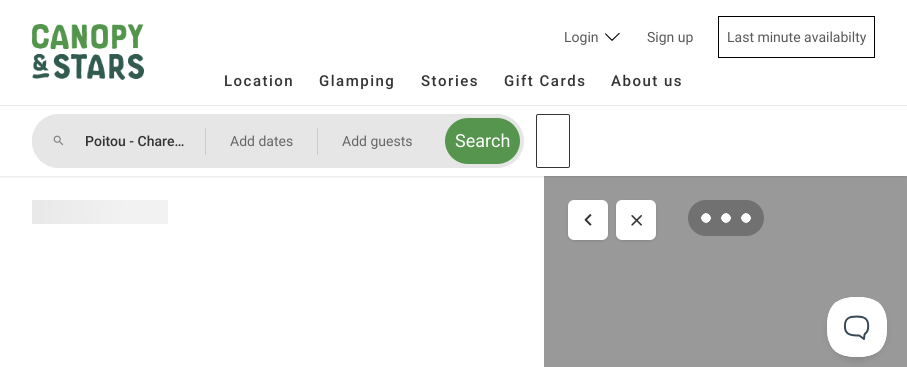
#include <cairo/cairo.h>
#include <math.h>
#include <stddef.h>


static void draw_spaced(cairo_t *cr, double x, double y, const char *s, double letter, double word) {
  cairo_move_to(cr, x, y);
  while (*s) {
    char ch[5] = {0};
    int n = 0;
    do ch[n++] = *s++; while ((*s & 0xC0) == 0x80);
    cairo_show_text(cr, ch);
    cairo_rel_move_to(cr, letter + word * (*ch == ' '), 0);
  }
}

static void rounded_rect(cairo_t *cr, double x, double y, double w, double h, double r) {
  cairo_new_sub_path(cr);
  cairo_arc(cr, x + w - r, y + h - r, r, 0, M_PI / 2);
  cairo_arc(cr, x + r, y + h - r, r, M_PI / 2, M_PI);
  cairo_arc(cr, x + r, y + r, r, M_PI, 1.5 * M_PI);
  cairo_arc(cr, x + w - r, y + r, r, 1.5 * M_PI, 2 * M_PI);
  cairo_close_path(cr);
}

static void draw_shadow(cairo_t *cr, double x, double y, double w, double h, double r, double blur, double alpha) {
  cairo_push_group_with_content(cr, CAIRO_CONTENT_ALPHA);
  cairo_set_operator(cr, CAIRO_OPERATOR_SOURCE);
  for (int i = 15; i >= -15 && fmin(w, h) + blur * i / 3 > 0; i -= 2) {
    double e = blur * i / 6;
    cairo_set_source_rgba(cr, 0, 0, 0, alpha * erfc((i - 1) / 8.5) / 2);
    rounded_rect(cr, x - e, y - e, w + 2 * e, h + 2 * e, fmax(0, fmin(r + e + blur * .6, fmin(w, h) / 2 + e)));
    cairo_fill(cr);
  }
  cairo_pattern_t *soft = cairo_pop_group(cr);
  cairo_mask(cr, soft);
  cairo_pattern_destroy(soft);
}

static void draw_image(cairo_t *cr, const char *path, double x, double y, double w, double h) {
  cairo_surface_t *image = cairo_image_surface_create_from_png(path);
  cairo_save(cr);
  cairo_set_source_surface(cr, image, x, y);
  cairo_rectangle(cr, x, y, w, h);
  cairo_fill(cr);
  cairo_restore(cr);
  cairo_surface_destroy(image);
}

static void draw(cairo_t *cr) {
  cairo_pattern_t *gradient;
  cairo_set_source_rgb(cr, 1, 1, 1);
  cairo_paint(cr);
  cairo_set_source_rgb(cr, 153 / 255.0, 153 / 255.0, 153 / 255.0);
  cairo_rectangle(cr, 544, 176, 363, 191);
  cairo_fill(cr);
  cairo_save(cr);
  cairo_rectangle(cr, 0, 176, 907, 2);
  cairo_clip(cr);
  cairo_set_source_rgb(cr, 0, 0, 0);
  draw_shadow(cr, 0, 106, 907, 71, 0, 1.5, 0.1);
  cairo_restore(cr);
  cairo_set_source_rgb(cr, 1, 1, 1);
  cairo_rectangle(cr, 1, 104, 905, 1);
  cairo_fill(cr);
  draw_image(cr, "images/1.png", 605, 32, 15, 9);
  cairo_rectangle(cr, 718.5, 16.5, 156, 41);
  cairo_set_source_rgb(cr, 0, 0, 0);
  cairo_set_line_width(cr, 1);
  cairo_stroke(cr);
  draw_image(cr, "images/2.png", 32, 24, 112, 56);
  cairo_set_source_rgb(cr, 230 / 255.0, 230 / 255.0, 230 / 255.0);
  cairo_rectangle(cr, 0, 105, 907, 1);
  cairo_fill(cr);
  rounded_rect(cr, 32, 114, 492, 54, 27);
  cairo_fill(cr);
  rounded_rect(cr, 32, 114, 173, 54, 27);
  cairo_fill(cr);
  draw_image(cr, "images/3.png", 53, 135, 11, 11);
  cairo_set_source_rgb(cr, 204 / 255.0, 204 / 255.0, 204 / 255.0);
  cairo_rectangle(cr, 205, 128, 1, 27);
  cairo_fill(cr);
  cairo_rectangle(cr, 317, 128, 1, 27);
  cairo_fill(cr);
  cairo_set_source_rgb(cr, 86 / 255.0, 149 / 255.0, 78 / 255.0);
  rounded_rect(cr, 445, 118, 75, 46, 23);
  cairo_fill(cr);
  rounded_rect(cr, 536.5, 114.5, 33, 53, 1.5);
  cairo_set_source_rgb(cr, 52 / 255.0, 52 / 255.0, 52 / 255.0);
  cairo_stroke(cr);
  gradient = cairo_pattern_create_linear(127, 208, 39, 201);
  cairo_pattern_add_color_stop_rgba(gradient, 0, 242 / 255.0, 242 / 255.0, 242 / 255.0, 1);
  cairo_pattern_add_color_stop_rgba(gradient, 1, 233 / 255.0, 233 / 255.0, 233 / 255.0, 1);
  cairo_set_source(cr, gradient);
  cairo_pattern_destroy(gradient);
  cairo_rectangle(cr, 32, 200, 136, 24);
  cairo_fill(cr);
  cairo_set_source_rgb(cr, 0, 0, 0);
  draw_shadow(cr, 569, 202, 38, 38, 5, 1, 0.1);
  draw_shadow(cr, 568, 201, 40, 40, 6, 1.5, 0.1);
  cairo_set_source_rgb(cr, 1, 1, 1);
  rounded_rect(cr, 568, 200, 40, 40, 6);
  cairo_fill(cr);
  draw_image(cr, "images/4.png", 584, 214, 8, 12);
  cairo_set_source_rgb(cr, 0, 0, 0);
  draw_shadow(cr, 617, 202, 38, 38, 5, 1, 0.1);
  draw_shadow(cr, 616, 201, 40, 40, 6, 1.5, 0.1);
  cairo_set_source_rgb(cr, 1, 1, 1);
  rounded_rect(cr, 616, 200, 40, 40, 6);
  cairo_fill(cr);
  draw_image(cr, "images/5.png", 631, 215, 11, 11);
  cairo_set_source_rgb(cr, 113 / 255.0, 113 / 255.0, 113 / 255.0);
  rounded_rect(cr, 688, 200, 76, 36, 18);
  cairo_fill(cr);
  gradient = cairo_pattern_create_radial(746, 218, 0, 746, 218, 5);
  cairo_pattern_add_color_stop_rgba(gradient, 0.9, 1, 1, 1, 1);
  cairo_pattern_add_color_stop_rgba(gradient, 1, 113 / 255.0, 113 / 255.0, 113 / 255.0, 1);
  cairo_set_source(cr, gradient);
  cairo_pattern_destroy(gradient);
  cairo_rectangle(cr, 741, 213, 10, 10);
  cairo_fill(cr);
  gradient = cairo_pattern_create_radial(726, 218, 0, 726, 218, 5);
  cairo_pattern_add_color_stop_rgba(gradient, 0.9, 1, 1, 1, 1);
  cairo_pattern_add_color_stop_rgba(gradient, 1, 113 / 255.0, 113 / 255.0, 113 / 255.0, 1);
  cairo_set_source(cr, gradient);
  cairo_pattern_destroy(gradient);
  cairo_rectangle(cr, 721, 213, 10, 10);
  cairo_fill(cr);
  gradient = cairo_pattern_create_radial(706, 218, 0, 706, 218, 5);
  cairo_pattern_add_color_stop_rgba(gradient, 0.9, 1, 1, 1, 1);
  cairo_pattern_add_color_stop_rgba(gradient, 1, 113 / 255.0, 113 / 255.0, 113 / 255.0, 1);
  cairo_set_source(cr, gradient);
  cairo_pattern_destroy(gradient);
  cairo_rectangle(cr, 701, 213, 10, 10);
  cairo_fill(cr);
  cairo_set_source_rgb(cr, 0, 0, 0);
  draw_shadow(cr, 827, 301, 60, 60, 30, 3.5, 0.1);
  draw_image(cr, "images/6.png", 827, 297, 60, 60);
  cairo_select_font_face(cr, "Roboto", CAIRO_FONT_SLANT_NORMAL, CAIRO_FONT_WEIGHT_NORMAL);
  cairo_set_font_size(cr, 14);
  cairo_set_source_rgb(cr, 89 / 255.0, 89 / 255.0, 89 / 255.0);
  cairo_move_to(cr, 564, 42);
  cairo_show_text(cr, "Login");
  cairo_move_to(cr, 647, 42);
  cairo_show_text(cr, "Sign up");
  cairo_move_to(cr, 727, 42);
  cairo_show_text(cr, "Last minute availabilty");
  cairo_select_font_face(cr, "Roboto Medium", CAIRO_FONT_SLANT_NORMAL, CAIRO_FONT_WEIGHT_NORMAL);
  cairo_set_font_size(cr, 15);
  cairo_set_source_rgb(cr, 52 / 255.0, 52 / 255.0, 52 / 255.0);
  draw_spaced(cr, 224, 86, "Location", 1.5, 0);
  draw_spaced(cr, 319, 86, "Glamping", 1.5, 0);
  draw_spaced(cr, 421, 86, "Stories", 1.5, 0);
  draw_spaced(cr, 504, 86, "Gift Cards", 1.5, 0);
  draw_spaced(cr, 611, 86, "About us", 1.5, 0);
  cairo_set_font_size(cr, 14);
  cairo_move_to(cr, 85, 146);
  cairo_show_text(cr, "Poitou - Chare…");
  cairo_select_font_face(cr, "Roboto", CAIRO_FONT_SLANT_NORMAL, CAIRO_FONT_WEIGHT_NORMAL);
  cairo_set_source_rgb(cr, 102 / 255.0, 102 / 255.0, 102 / 255.0);
  cairo_move_to(cr, 230, 146);
  cairo_show_text(cr, "Add dates");
  cairo_move_to(cr, 342, 146);
  cairo_show_text(cr, "Add guests");
  cairo_set_font_size(cr, 18);
  cairo_set_source_rgb(cr, 1, 1, 1);
  cairo_move_to(cr, 455, 147);
  cairo_show_text(cr, "Search");
}

int main(void) {
  cairo_surface_t *surface = cairo_image_surface_create(CAIRO_FORMAT_RGB24, 907, 367);
  cairo_t *cr = cairo_create(surface);
  cairo_font_options_t *options = cairo_font_options_create();
  cairo_font_options_set_hint_metrics(options, CAIRO_HINT_METRICS_OFF);
  cairo_font_options_set_hint_style(options, CAIRO_HINT_STYLE_NONE);
  cairo_set_font_options(cr, options);
  cairo_set_miter_limit(cr, 4);
  draw(cr);
  cairo_surface_write_to_png(surface, "out.png");
  cairo_font_options_destroy(options);
  cairo_destroy(cr);
  cairo_surface_destroy(surface);
  return 0;
}
